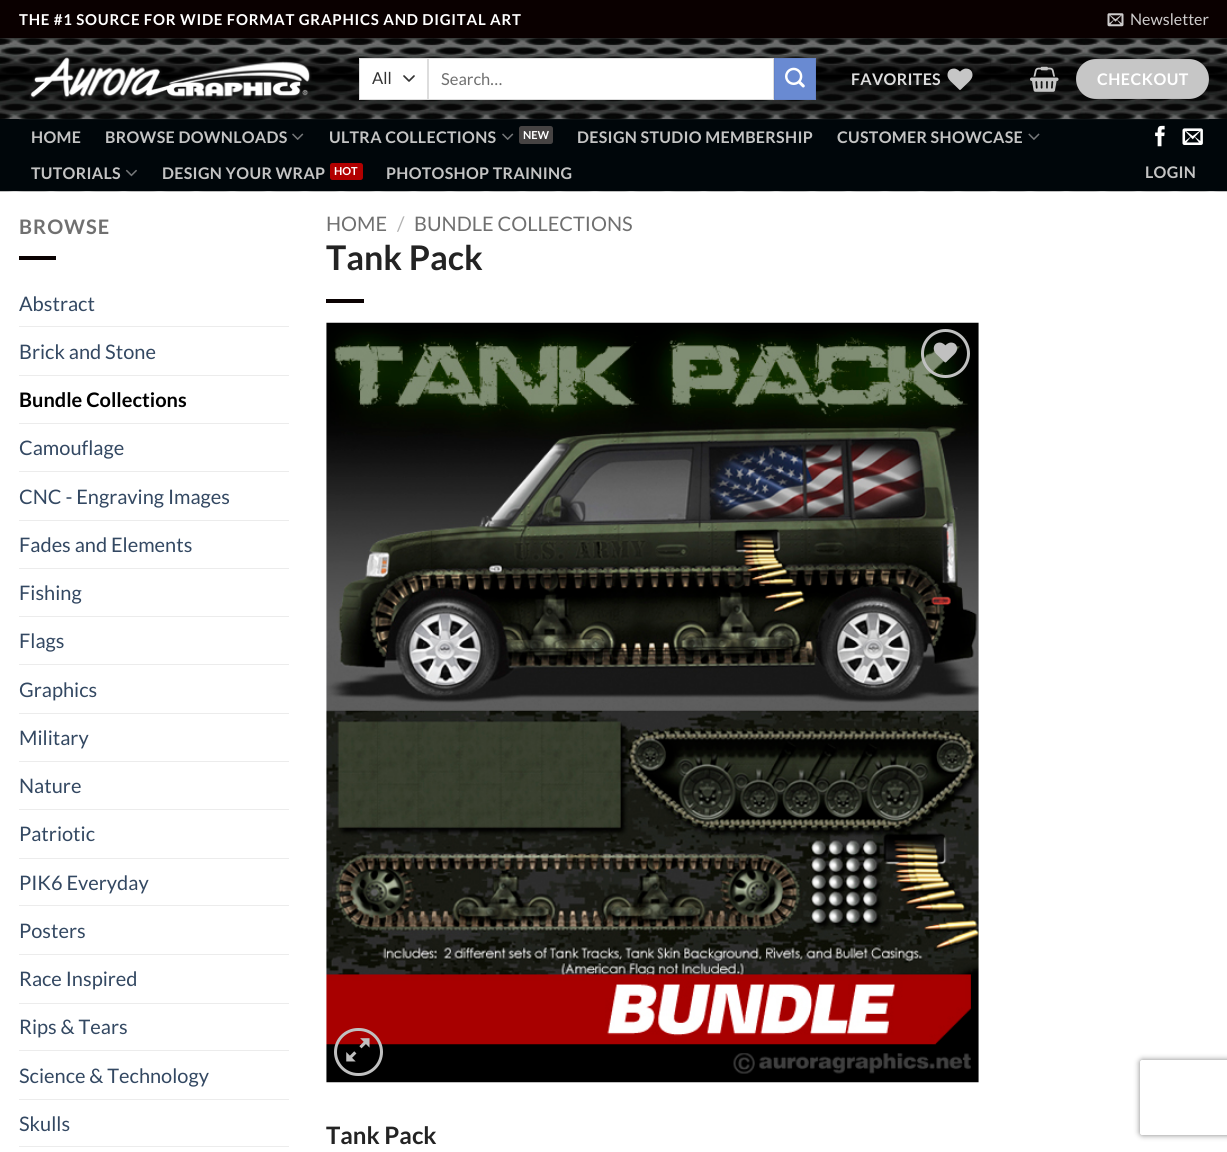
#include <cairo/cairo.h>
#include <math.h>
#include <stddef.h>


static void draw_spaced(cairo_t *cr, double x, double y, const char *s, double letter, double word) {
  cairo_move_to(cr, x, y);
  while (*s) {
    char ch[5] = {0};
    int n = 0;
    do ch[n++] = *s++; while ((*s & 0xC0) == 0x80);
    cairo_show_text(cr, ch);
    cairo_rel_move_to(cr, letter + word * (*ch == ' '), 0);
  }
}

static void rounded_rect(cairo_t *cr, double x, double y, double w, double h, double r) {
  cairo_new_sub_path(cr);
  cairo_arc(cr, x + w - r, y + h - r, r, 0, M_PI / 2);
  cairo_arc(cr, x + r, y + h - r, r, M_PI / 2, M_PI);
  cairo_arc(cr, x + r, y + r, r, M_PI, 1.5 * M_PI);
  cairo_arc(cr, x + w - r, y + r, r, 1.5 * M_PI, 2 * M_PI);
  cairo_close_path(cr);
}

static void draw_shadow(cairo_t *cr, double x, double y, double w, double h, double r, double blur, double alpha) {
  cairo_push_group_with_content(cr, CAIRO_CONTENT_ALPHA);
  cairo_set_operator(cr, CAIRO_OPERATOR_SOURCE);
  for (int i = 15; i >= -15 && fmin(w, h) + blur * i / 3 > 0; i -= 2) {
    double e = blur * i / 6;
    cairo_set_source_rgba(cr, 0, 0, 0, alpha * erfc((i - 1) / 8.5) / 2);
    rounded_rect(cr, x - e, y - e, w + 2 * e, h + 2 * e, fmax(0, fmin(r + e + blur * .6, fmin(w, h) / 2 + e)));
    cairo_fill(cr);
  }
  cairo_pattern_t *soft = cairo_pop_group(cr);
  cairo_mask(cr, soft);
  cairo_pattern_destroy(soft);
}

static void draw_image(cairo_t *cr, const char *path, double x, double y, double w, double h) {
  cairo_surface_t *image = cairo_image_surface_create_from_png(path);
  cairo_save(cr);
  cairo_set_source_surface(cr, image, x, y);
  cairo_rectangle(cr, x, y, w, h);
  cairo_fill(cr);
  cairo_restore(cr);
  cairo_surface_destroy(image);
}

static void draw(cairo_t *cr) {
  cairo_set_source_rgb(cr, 1, 1, 1);
  cairo_paint(cr);
  cairo_set_source_rgb(cr, 10 / 255.0, 0, 0);
  cairo_rectangle(cr, 0, 0, 1227, 38);
  cairo_fill(cr);
  draw_image(cr, "images/1.png", 1107, 13, 17, 14);
  draw_image(cr, "images/2.png", 0, 38, 1227, 154);
  draw_image(cr, "images/3.png", 29, 55, 283, 45);
  cairo_set_source_rgb(cr, 1, 1, 1);
  cairo_rectangle(cr, 360, 59, 67, 40);
  cairo_fill(cr);
  cairo_new_path(cr);
  cairo_move_to(cr, 404, 76);
  cairo_line_to(cr, 409, 81);
  cairo_line_to(cr, 414, 76);
  cairo_set_source_rgb(cr, 51 / 255.0, 51 / 255.0, 51 / 255.0);
  cairo_set_line_width(cr, 1.7);
  cairo_set_line_cap(cr, CAIRO_LINE_CAP_ROUND);
  cairo_set_line_join(cr, CAIRO_LINE_JOIN_ROUND);
  cairo_stroke(cr);
  cairo_rectangle(cr, 359.5, 58.5, 68, 41);
  cairo_set_source_rgb(cr, 221 / 255.0, 221 / 255.0, 221 / 255.0);
  cairo_set_line_width(cr, 1);
  cairo_set_line_cap(cr, CAIRO_LINE_CAP_BUTT);
  cairo_set_line_join(cr, CAIRO_LINE_JOIN_MITER);
  cairo_stroke(cr);
  cairo_set_source_rgb(cr, 1, 1, 1);
  cairo_rectangle(cr, 428.5, 58.5, 345, 41);
  cairo_fill_preserve(cr);
  cairo_set_source_rgb(cr, 221 / 255.0, 221 / 255.0, 221 / 255.0);
  cairo_stroke(cr);
  cairo_set_source_rgb(cr, 105 / 255.0, 138 / 255.0, 210 / 255.0);
  cairo_rectangle(cr, 774.5, 58.5, 41, 41);
  cairo_fill_preserve(cr);
  cairo_set_source_rgb(cr, 100 / 255.0, 131 / 255.0, 200 / 255.0);
  cairo_stroke(cr);
  draw_image(cr, "images/4.png", 785, 67, 20, 21);
  draw_image(cr, "images/5.png", 947, 68, 26, 22);
  cairo_set_source_rgba(cr, 0, 0, 0, 0.1);
  cairo_rectangle(cr, 990, 60, 1, 38);
  cairo_fill(cr);
  cairo_rectangle(cr, 1010, 60, 1, 38);
  cairo_fill(cr);
  draw_image(cr, "images/6.png", 1030, 66, 29, 26);
  cairo_set_source_rgb(cr, 198 / 255.0, 198 / 255.0, 198 / 255.0);
  rounded_rect(cr, 1076, 59, 133, 40, 20);
  cairo_fill(cr);
  cairo_rectangle(cr, 1076.5, 59.5, 132, 39);
  cairo_set_source_rgba(cr, 0, 0, 0, 0.05);
  cairo_stroke(cr);
  cairo_set_source_rgb(cr, 0, 6 / 255.0, 10 / 255.0);
  cairo_rectangle(cr, 0, 119, 1227, 72);
  cairo_fill(cr);
  cairo_set_source_rgb(cr, 11 / 255.0, 17 / 255.0, 20 / 255.0);
  cairo_rectangle(cr, 19, 119, 1190, 1);
  cairo_fill(cr);
  draw_image(cr, "images/7.png", 292, 133, 12, 7);
  draw_image(cr, "images/7.png", 502, 133, 12, 7);
  cairo_set_source_rgb(cr, 70 / 255.0, 67 / 255.0, 67 / 255.0);
  rounded_rect(cr, 519, 126, 34, 18, 2.5);
  cairo_fill(cr);
  draw_image(cr, "images/8.png", 1028, 133, 12, 7);
  draw_image(cr, "images/9.png", 125, 169, 12, 8);
  cairo_set_source_rgb(cr, 178 / 255.0, 0, 0);
  rounded_rect(cr, 330, 163, 33, 17, 2.5);
  cairo_fill(cr);
  draw_image(cr, "images/10.png", 1155, 125, 10, 22);
  draw_image(cr, "images/11.png", 1182, 128, 21, 17);
  cairo_set_source_rgb(cr, 10 / 255.0, 2 / 255.0, 2 / 255.0);
  cairo_rectangle(cr, 19, 256, 37, 4);
  cairo_fill(cr);
  cairo_set_source_rgb(cr, 236 / 255.0, 236 / 255.0, 236 / 255.0);
  cairo_rectangle(cr, 19, 326, 270, 1);
  cairo_fill(cr);
  cairo_rectangle(cr, 19, 375, 270, 1);
  cairo_fill(cr);
  cairo_rectangle(cr, 19, 423, 270, 1);
  cairo_fill(cr);
  cairo_rectangle(cr, 19, 471, 270, 1);
  cairo_fill(cr);
  cairo_rectangle(cr, 19, 520, 270, 1);
  cairo_fill(cr);
  cairo_rectangle(cr, 19, 568, 270, 1);
  cairo_fill(cr);
  cairo_rectangle(cr, 19, 616, 270, 1);
  cairo_fill(cr);
  cairo_rectangle(cr, 19, 664, 270, 1);
  cairo_fill(cr);
  cairo_rectangle(cr, 19, 713, 270, 1);
  cairo_fill(cr);
  cairo_rectangle(cr, 19, 761, 270, 1);
  cairo_fill(cr);
  cairo_rectangle(cr, 19, 809, 270, 1);
  cairo_fill(cr);
  cairo_rectangle(cr, 19, 858, 270, 1);
  cairo_fill(cr);
  cairo_rectangle(cr, 19, 905, 270, 1);
  cairo_fill(cr);
  cairo_rectangle(cr, 19, 954, 270, 1);
  cairo_fill(cr);
  cairo_rectangle(cr, 19, 1003, 270, 1);
  cairo_fill(cr);
  cairo_rectangle(cr, 19, 1050, 270, 1);
  cairo_fill(cr);
  cairo_rectangle(cr, 19, 1099, 270, 1);
  cairo_fill(cr);
  cairo_rectangle(cr, 19, 1146, 270, 1);
  cairo_fill(cr);
  cairo_set_source_rgb(cr, 10 / 255.0, 2 / 255.0, 2 / 255.0);
  cairo_rectangle(cr, 326, 299, 38, 4);
  cairo_fill(cr);
  draw_image(cr, "images/12.png", 326, 322, 653, 761);
  cairo_arc(cr, 945.5, 353.5, 23, 0, 2 * M_PI);
  cairo_set_source_rgb(cr, 192 / 255.0, 192 / 255.0, 192 / 255.0);
  cairo_set_line_width(cr, 3);
  cairo_stroke(cr);
  draw_image(cr, "images/13.png", 933, 342, 24, 21);
  rounded_rect(cr, 335.5, 1029.5, 46, 45, 22.5);
  cairo_stroke(cr);
  draw_image(cr, "images/14.png", 346, 1038, 24, 24);
  cairo_save(cr);
  cairo_set_fill_rule(cr, CAIRO_FILL_RULE_EVEN_ODD);
  cairo_new_path(cr);
  cairo_move_to(cr, 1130, 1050);
  cairo_line_to(cr, 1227, 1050);
  cairo_line_to(cr, 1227, 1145);
  cairo_line_to(cr, 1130, 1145);
  cairo_close_path(cr);
  cairo_move_to(cr, 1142.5, 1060);
  cairo_line_to(cr, 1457.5, 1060);
  cairo_curve_to(cr, 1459, 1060, 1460, 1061, 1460, 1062.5);
  cairo_line_to(cr, 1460, 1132.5);
  cairo_curve_to(cr, 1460, 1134, 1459, 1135, 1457.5, 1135);
  cairo_line_to(cr, 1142.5, 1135);
  cairo_curve_to(cr, 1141, 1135, 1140, 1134, 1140, 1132.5);
  cairo_line_to(cr, 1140, 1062.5);
  cairo_curve_to(cr, 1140, 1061, 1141, 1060, 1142.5, 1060);
  cairo_close_path(cr);
  cairo_clip(cr);
  cairo_set_source_rgb(cr, 128 / 255.0, 128 / 255.0, 128 / 255.0);
  draw_shadow(cr, 1140, 1060, 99, 75, 2.5, 3, 1);
  cairo_restore(cr);
  cairo_select_font_face(cr, "Lato", CAIRO_FONT_SLANT_NORMAL, CAIRO_FONT_WEIGHT_BOLD);
  cairo_set_font_size(cr, 15);
  cairo_set_source_rgb(cr, 1, 1, 1);
  draw_spaced(cr, 19, 25, "THE #1 SOURCE FOR WIDE FORMAT GRAPHICS AND DIGITAL ART", 0.75, 0);
  cairo_select_font_face(cr, "Lato", CAIRO_FONT_SLANT_NORMAL, CAIRO_FONT_WEIGHT_NORMAL);
  cairo_set_font_size(cr, 16);
  cairo_set_source_rgb(cr, 206 / 255.0, 204 / 255.0, 204 / 255.0);
  cairo_move_to(cr, 1130, 25);
  cairo_show_text(cr, "Newsletter");
  cairo_set_font_size(cr, 16.5);
  cairo_set_source_rgb(cr, 51 / 255.0, 51 / 255.0, 51 / 255.0);
  cairo_move_to(cr, 372, 84);
  cairo_show_text(cr, "All");
  cairo_set_source_rgb(cr, 112 / 255.0, 112 / 255.0, 112 / 255.0);
  cairo_move_to(cr, 441, 85);
  cairo_show_text(cr, "Search…");
  cairo_select_font_face(cr, "Lato", CAIRO_FONT_SLANT_NORMAL, CAIRO_FONT_WEIGHT_BOLD);
  cairo_set_font_size(cr, 16);
  cairo_set_source_rgb(cr, 221 / 255.0, 221 / 255.0, 221 / 255.0);
  draw_spaced(cr, 851, 85, "FAVORITES", 0.3, 0);
  cairo_set_source_rgb(cr, 1, 1, 1);
  draw_spaced(cr, 1097, 85, "CHECKOUT", 0.5, 0);
  cairo_set_source_rgb(cr, 196 / 255.0, 196 / 255.0, 196 / 255.0);
  draw_spaced(cr, 31, 143, "HOME", 0.3, 0);
  draw_spaced(cr, 105, 143, "BROWSE DOWNLOADS", 0.3, 0);
  draw_spaced(cr, 329, 143, "ULTRA COLLECTIONS", 0.3, 0);
  cairo_set_font_size(cr, 11);
  cairo_set_source_rgb(cr, 1, 1, 1);
  cairo_move_to(cr, 523, 139);
  cairo_show_text(cr, "NEW");
  cairo_set_font_size(cr, 16);
  cairo_set_source_rgb(cr, 196 / 255.0, 196 / 255.0, 196 / 255.0);
  draw_spaced(cr, 577, 143, "DESIGN STUDIO MEMBERSHIP", 0.3, 0);
  draw_spaced(cr, 837, 143, "CUSTOMER SHOWCASE", 0.3, 0);
  draw_spaced(cr, 31, 179, "TUTORIALS", 0.3, 0);
  draw_spaced(cr, 162, 179, "DESIGN YOUR WRAP", 0.3, 0);
  cairo_set_font_size(cr, 11);
  cairo_set_source_rgb(cr, 1, 1, 1);
  cairo_move_to(cr, 334, 175);
  cairo_show_text(cr, "HOT");
  cairo_set_font_size(cr, 16);
  cairo_set_source_rgb(cr, 196 / 255.0, 196 / 255.0, 196 / 255.0);
  draw_spaced(cr, 386, 179, "PHOTOSHOP TRAINING", 0.3, 0);
  draw_spaced(cr, 1145, 178, "LOGIN", 0.3, 0);
  cairo_set_font_size(cr, 20);
  cairo_set_source_rgb(cr, 112 / 255.0, 112 / 255.0, 112 / 255.0);
  draw_spaced(cr, 19, 234, "BROWSE", 1, 0);
  cairo_select_font_face(cr, "Lato", CAIRO_FONT_SLANT_NORMAL, CAIRO_FONT_WEIGHT_NORMAL);
  cairo_set_source_rgb(cr, 51 / 255.0, 72 / 255.0, 98 / 255.0);
  cairo_move_to(cr, 19, 311);
  cairo_show_text(cr, "Abstract");
  cairo_move_to(cr, 19, 359);
  cairo_show_text(cr, "Brick and Stone");
  cairo_select_font_face(cr, "Lato", CAIRO_FONT_SLANT_NORMAL, CAIRO_FONT_WEIGHT_BOLD);
  cairo_set_source_rgb(cr, 0, 0, 0);
  cairo_move_to(cr, 19, 407);
  cairo_show_text(cr, "Bundle Collections");
  cairo_select_font_face(cr, "Lato", CAIRO_FONT_SLANT_NORMAL, CAIRO_FONT_WEIGHT_NORMAL);
  cairo_set_source_rgb(cr, 51 / 255.0, 72 / 255.0, 98 / 255.0);
  cairo_move_to(cr, 19, 455);
  cairo_show_text(cr, "Camouflage");
  cairo_move_to(cr, 19, 504);
  cairo_show_text(cr, "CNC - Engraving Images");
  cairo_move_to(cr, 19, 552);
  cairo_show_text(cr, "Fades and Elements");
  cairo_move_to(cr, 19, 600);
  cairo_show_text(cr, "Fishing");
  cairo_move_to(cr, 19, 648);
  cairo_show_text(cr, "Flags");
  cairo_move_to(cr, 19, 697);
  cairo_show_text(cr, "Graphics");
  cairo_move_to(cr, 19, 745);
  cairo_show_text(cr, "Military");
  cairo_move_to(cr, 19, 793);
  cairo_show_text(cr, "Nature");
  cairo_move_to(cr, 19, 841);
  cairo_show_text(cr, "Patriotic");
  cairo_move_to(cr, 19, 890);
  cairo_show_text(cr, "PIK6 Everyday");
  cairo_move_to(cr, 19, 938);
  cairo_show_text(cr, "Posters");
  cairo_move_to(cr, 19, 986);
  cairo_show_text(cr, "Race Inspired");
  cairo_move_to(cr, 19, 1034);
  cairo_show_text(cr, "Rips & Tears");
  cairo_move_to(cr, 19, 1083);
  cairo_show_text(cr, "Science & Technology");
  cairo_move_to(cr, 19, 1131);
  cairo_show_text(cr, "Skulls");
  cairo_set_source_rgb(cr, 112 / 255.0, 112 / 255.0, 112 / 255.0);
  cairo_move_to(cr, 326, 231);
  cairo_show_text(cr, "HOME");
  cairo_set_source_rgb(cr, 178 / 255.0, 178 / 255.0, 178 / 255.0);
  cairo_move_to(cr, 397, 231);
  cairo_show_text(cr, "/");
  cairo_set_source_rgb(cr, 112 / 255.0, 112 / 255.0, 112 / 255.0);
  cairo_move_to(cr, 414, 231);
  cairo_show_text(cr, "BUNDLE COLLECTIONS");
  cairo_select_font_face(cr, "Lato", CAIRO_FONT_SLANT_NORMAL, CAIRO_FONT_WEIGHT_BOLD);
  cairo_set_font_size(cr, 34);
  cairo_set_source_rgb(cr, 35 / 255.0, 35 / 255.0, 35 / 255.0);
  cairo_move_to(cr, 326, 270);
  cairo_show_text(cr, "Tank Pack");
  cairo_set_font_size(cr, 24);
  cairo_move_to(cr, 326, 1144);
  cairo_show_text(cr, "Tank Pack");
}

int main(void) {
  cairo_surface_t *surface = cairo_image_surface_create(CAIRO_FORMAT_RGB24, 1227, 1152);
  cairo_t *cr = cairo_create(surface);
  cairo_font_options_t *options = cairo_font_options_create();
  cairo_font_options_set_hint_metrics(options, CAIRO_HINT_METRICS_OFF);
  cairo_font_options_set_hint_style(options, CAIRO_HINT_STYLE_NONE);
  cairo_set_font_options(cr, options);
  cairo_set_miter_limit(cr, 4);
  draw(cr);
  cairo_surface_write_to_png(surface, "out.png");
  cairo_font_options_destroy(options);
  cairo_destroy(cr);
  cairo_surface_destroy(surface);
  return 0;
}
